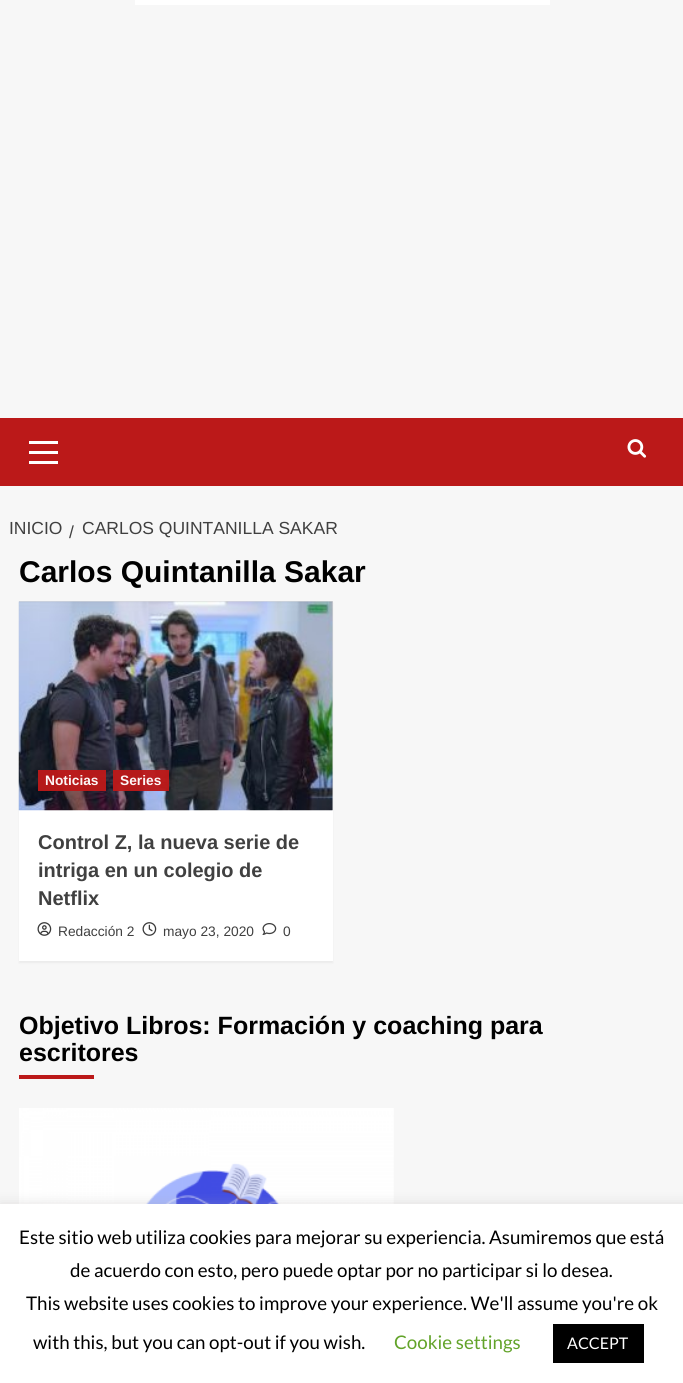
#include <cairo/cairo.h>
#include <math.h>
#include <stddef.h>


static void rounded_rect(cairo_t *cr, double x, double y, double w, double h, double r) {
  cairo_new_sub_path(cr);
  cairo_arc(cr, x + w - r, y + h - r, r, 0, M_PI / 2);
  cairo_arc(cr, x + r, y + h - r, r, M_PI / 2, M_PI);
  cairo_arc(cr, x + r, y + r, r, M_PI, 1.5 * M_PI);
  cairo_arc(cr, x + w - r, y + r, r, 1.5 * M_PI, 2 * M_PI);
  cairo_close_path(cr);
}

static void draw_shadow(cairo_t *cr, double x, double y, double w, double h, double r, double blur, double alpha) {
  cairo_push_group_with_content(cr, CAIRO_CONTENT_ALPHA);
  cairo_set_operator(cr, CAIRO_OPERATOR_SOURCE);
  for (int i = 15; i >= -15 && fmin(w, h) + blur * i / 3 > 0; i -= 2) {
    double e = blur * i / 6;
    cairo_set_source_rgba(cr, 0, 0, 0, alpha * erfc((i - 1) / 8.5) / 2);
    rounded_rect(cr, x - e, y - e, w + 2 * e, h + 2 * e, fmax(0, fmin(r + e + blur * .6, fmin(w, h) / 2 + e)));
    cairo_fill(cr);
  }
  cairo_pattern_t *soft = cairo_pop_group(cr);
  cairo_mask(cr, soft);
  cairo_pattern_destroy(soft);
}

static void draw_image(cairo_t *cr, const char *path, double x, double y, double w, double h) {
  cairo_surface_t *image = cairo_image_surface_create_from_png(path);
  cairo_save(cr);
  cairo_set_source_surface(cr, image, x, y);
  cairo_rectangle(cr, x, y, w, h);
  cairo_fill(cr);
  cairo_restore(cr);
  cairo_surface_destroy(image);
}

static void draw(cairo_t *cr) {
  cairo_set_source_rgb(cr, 247 / 255.0, 247 / 255.0, 247 / 255.0);
  cairo_paint(cr);
  cairo_set_source_rgb(cr, 1, 1, 1);
  cairo_rectangle(cr, 135, 0, 415, 5);
  cairo_fill(cr);
  cairo_set_source_rgb(cr, 187 / 255.0, 25 / 255.0, 25 / 255.0);
  cairo_rectangle(cr, 0, 418, 683, 68);
  cairo_fill(cr);
  cairo_set_source_rgb(cr, 1, 1, 1);
  cairo_rectangle(cr, 29, 451, 29, 3);
  cairo_fill(cr);
  cairo_rectangle(cr, 29, 441, 29, 3);
  cairo_fill(cr);
  cairo_rectangle(cr, 29, 461, 29, 3);
  cairo_fill(cr);
  draw_image(cr, "images/1.png", 627, 439, 20, 19);
  cairo_set_source_rgb(cr, 0, 0, 0);
  draw_shadow(cr, 19, 603, 314, 360, 0, 1, 0.05);
  cairo_set_source_rgb(cr, 1, 1, 1);
  cairo_rectangle(cr, 19, 810, 314, 151);
  cairo_fill(cr);
  cairo_set_source_rgb(cr, 216 / 255.0, 216 / 255.0, 216 / 255.0);
  cairo_rectangle(cr, 19, 601, 314, 209);
  cairo_fill(cr);
  draw_image(cr, "images/2.png", 18, 601, 315, 210);
  cairo_set_source_rgba(cr, 187 / 255.0, 25 / 255.0, 25 / 255.0, 0.96);
  cairo_rectangle(cr, 38, 770, 68, 21);
  cairo_fill(cr);
  cairo_rectangle(cr, 113, 770, 56, 21);
  cairo_fill(cr);
  draw_image(cr, "images/3.png", 37, 922, 15, 14);
  draw_image(cr, "images/4.png", 142, 922, 15, 14);
  draw_image(cr, "images/5.png", 262, 923, 15, 12);
  cairo_set_source_rgb(cr, 187 / 255.0, 25 / 255.0, 25 / 255.0);
  cairo_rectangle(cr, 19, 1075, 75, 4);
  cairo_fill(cr);
  draw_image(cr, "images/6.png", 19, 1108, 375, 96);
  cairo_set_source_rgb(cr, 172 / 255.0, 171 / 255.0, 171 / 255.0);
  draw_shadow(cr, 0, 1203, 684, 180, 0, 6, 0.3);
  cairo_set_source_rgb(cr, 1, 1, 1);
  cairo_rectangle(cr, 0, 1204, 683, 179);
  cairo_fill(cr);
  cairo_set_source_rgb(cr, 0, 0, 0);
  cairo_rectangle(cr, 553, 1324, 91, 39);
  cairo_fill(cr);
  cairo_select_font_face(cr, "Liberation Sans", CAIRO_FONT_SLANT_NORMAL, CAIRO_FONT_WEIGHT_NORMAL);
  cairo_set_font_size(cr, 17.5);
  cairo_set_source_rgb(cr, 64 / 255.0, 64 / 255.0, 64 / 255.0);
  cairo_move_to(cr, 9, 534);
  cairo_show_text(cr, "INICIO");
  cairo_move_to(cr, 69, 538);
  cairo_show_text(cr, "/");
  cairo_move_to(cr, 82, 534);
  cairo_show_text(cr, "CARLOS QUINTANILLA SAKAR");
  cairo_select_font_face(cr, "Liberation Sans", CAIRO_FONT_SLANT_NORMAL, CAIRO_FONT_WEIGHT_BOLD);
  cairo_set_font_size(cr, 30);
  cairo_set_source_rgb(cr, 0, 0, 0);
  cairo_move_to(cr, 19, 582);
  cairo_show_text(cr, "Carlos Quintanilla Sakar");
  cairo_set_font_size(cr, 13.75);
  cairo_set_source_rgb(cr, 252 / 255.0, 246 / 255.0, 246 / 255.0);
  cairo_move_to(cr, 45, 785);
  cairo_show_text(cr, "Noticias");
  cairo_move_to(cr, 120, 785);
  cairo_show_text(cr, "Series");
  cairo_set_font_size(cr, 20);
  cairo_set_source_rgb(cr, 64 / 255.0, 64 / 255.0, 64 / 255.0);
  cairo_move_to(cr, 38, 849);
  cairo_show_text(cr, "Control Z, la nueva serie de");
  cairo_move_to(cr, 38, 877);
  cairo_show_text(cr, "intriga en un colegio de");
  cairo_move_to(cr, 38, 905);
  cairo_show_text(cr, "Netflix");
  cairo_select_font_face(cr, "Liberation Sans", CAIRO_FONT_SLANT_NORMAL, CAIRO_FONT_WEIGHT_NORMAL);
  cairo_set_font_size(cr, 13.75);
  cairo_move_to(cr, 58, 936);
  cairo_show_text(cr, "Redacción 2");
  cairo_move_to(cr, 163, 936);
  cairo_show_text(cr, "mayo 23, 2020");
  cairo_move_to(cr, 283, 936);
  cairo_show_text(cr, "0");
  cairo_select_font_face(cr, "Liberation Sans", CAIRO_FONT_SLANT_NORMAL, CAIRO_FONT_WEIGHT_BOLD);
  cairo_set_font_size(cr, 25);
  cairo_set_source_rgb(cr, 0, 0, 0);
  cairo_move_to(cr, 19, 1034);
  cairo_show_text(cr, "Objetivo Libros: Formación y coaching para");
  cairo_move_to(cr, 19, 1061);
  cairo_show_text(cr, "escritores");
  cairo_select_font_face(cr, "Lato", CAIRO_FONT_SLANT_NORMAL, CAIRO_FONT_WEIGHT_NORMAL);
  cairo_set_font_size(cr, 18.75);
  cairo_move_to(cr, 19, 1244);
  cairo_show_text(cr, "Este sitio web utiliza cookies para mejorar su experiencia. Asumiremos que está");
  cairo_move_to(cr, 70, 1277);
  cairo_show_text(cr, "de acuerdo con esto, pero puede optar por no participar si lo desea.");
  cairo_move_to(cr, 26, 1310);
  cairo_show_text(cr, "This website uses cookies to improve your experience. We'll assume you're ok");
  cairo_move_to(cr, 33, 1349);
  cairo_show_text(cr, "with this, but you can opt-out if you wish.");
  cairo_set_source_rgb(cr, 98 / 255.0, 163 / 255.0, 41 / 255.0);
  cairo_move_to(cr, 394, 1349);
  cairo_show_text(cr, "Cookie settings");
  cairo_set_font_size(cr, 16);
  cairo_set_source_rgb(cr, 1, 1, 1);
  cairo_move_to(cr, 567, 1349);
  cairo_show_text(cr, "ACCEPT");
}

int main(void) {
  cairo_surface_t *surface = cairo_image_surface_create(CAIRO_FORMAT_RGB24, 683, 1383);
  cairo_t *cr = cairo_create(surface);
  cairo_font_options_t *options = cairo_font_options_create();
  cairo_font_options_set_hint_metrics(options, CAIRO_HINT_METRICS_OFF);
  cairo_font_options_set_hint_style(options, CAIRO_HINT_STYLE_NONE);
  cairo_set_font_options(cr, options);
  cairo_set_miter_limit(cr, 4);
  draw(cr);
  cairo_surface_write_to_png(surface, "out.png");
  cairo_font_options_destroy(options);
  cairo_destroy(cr);
  cairo_surface_destroy(surface);
  return 0;
}
